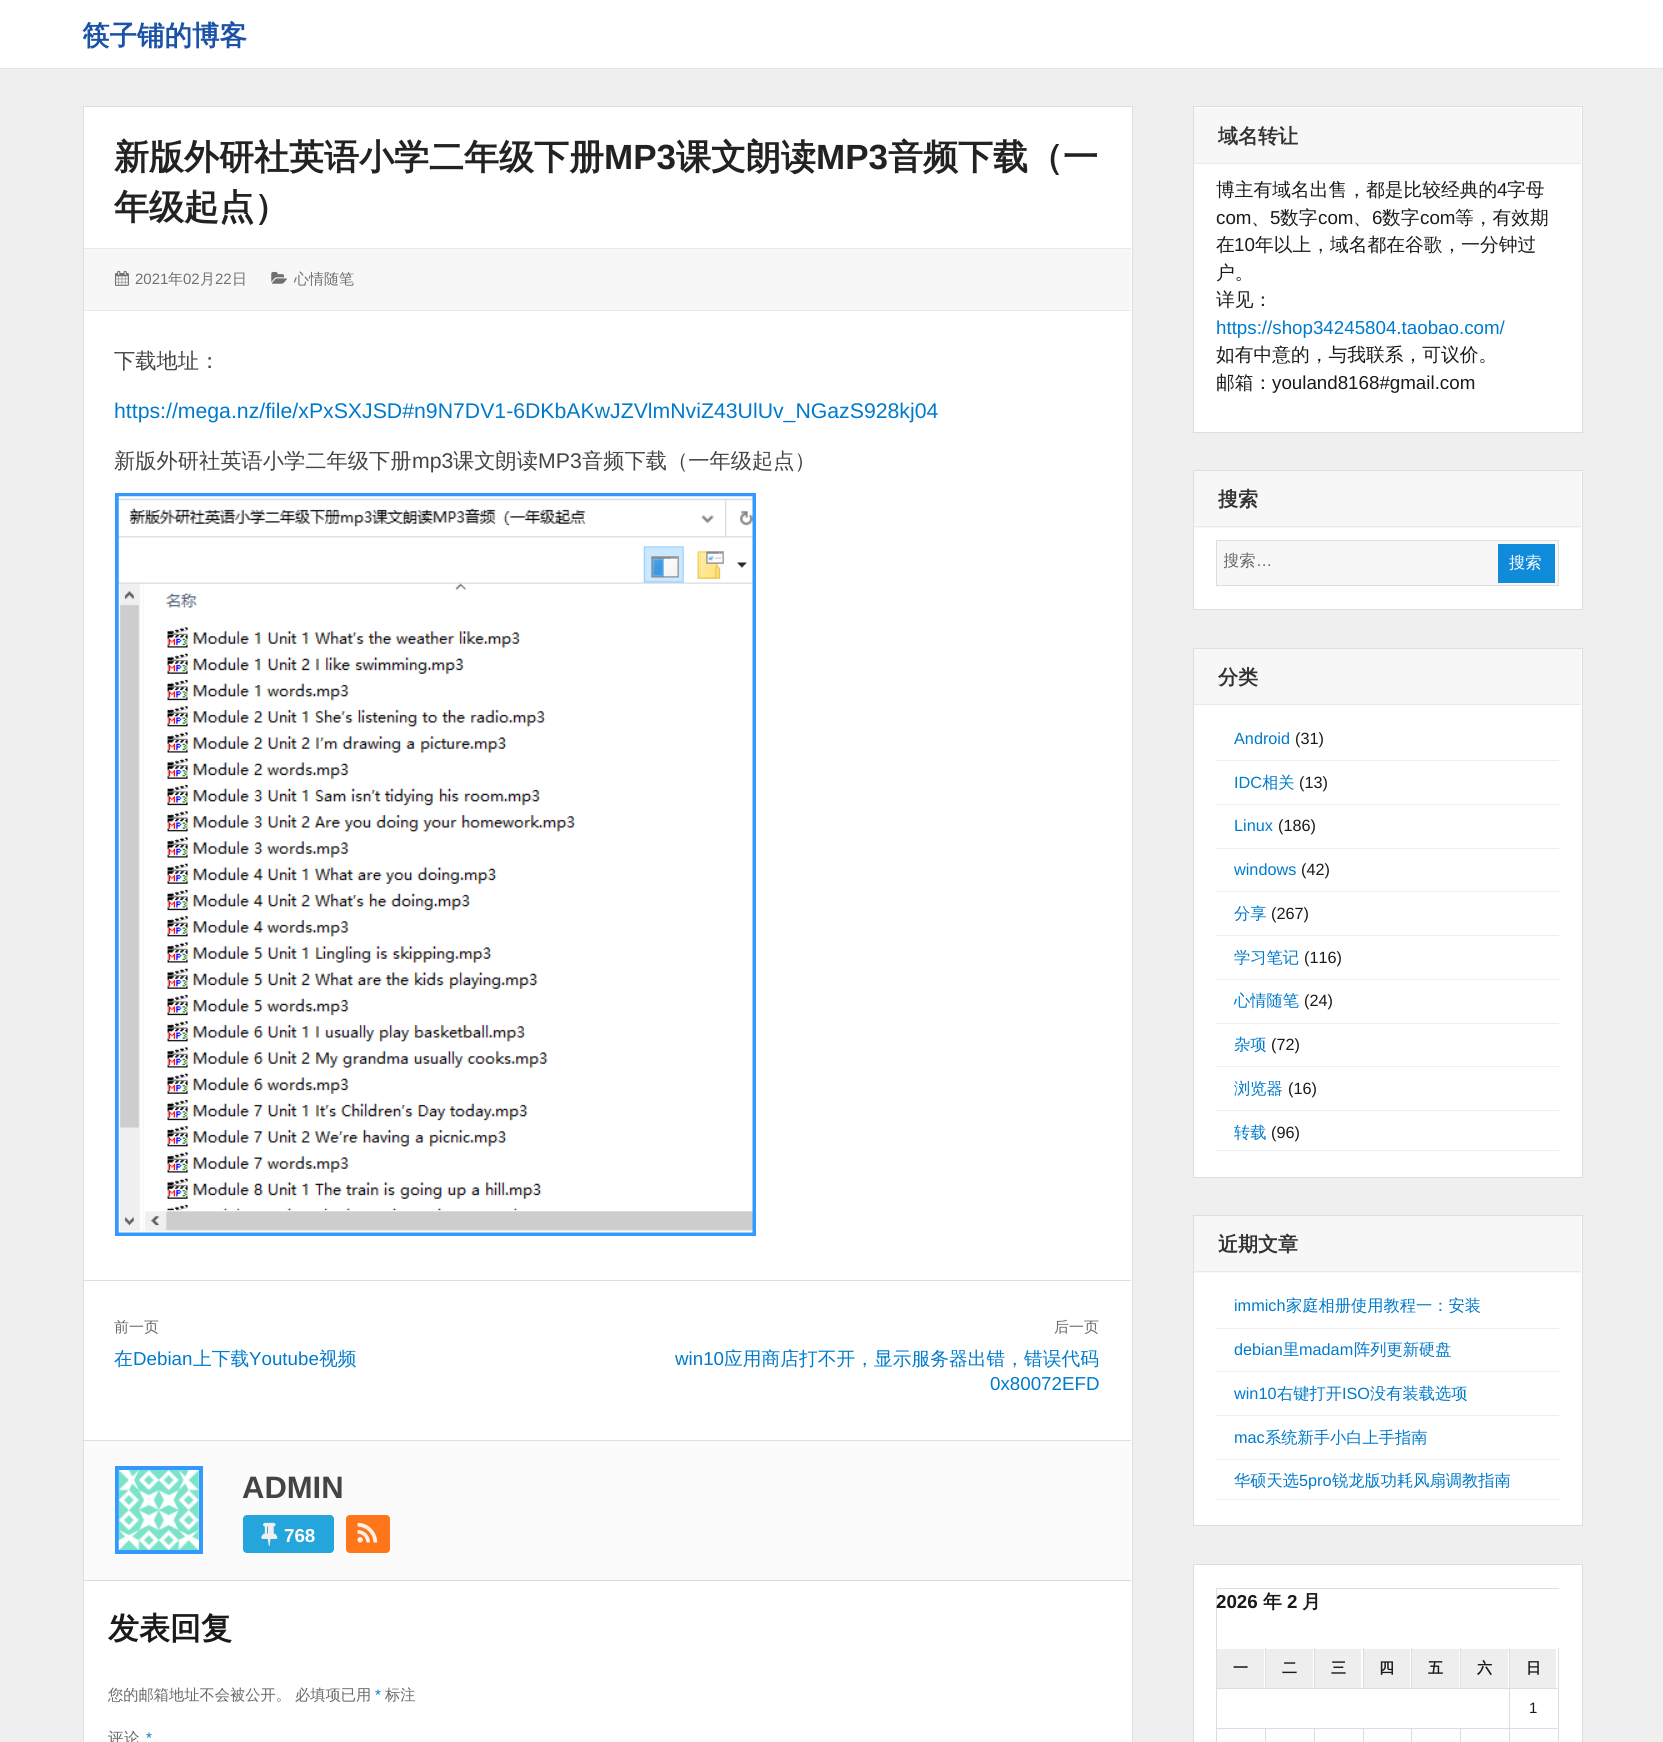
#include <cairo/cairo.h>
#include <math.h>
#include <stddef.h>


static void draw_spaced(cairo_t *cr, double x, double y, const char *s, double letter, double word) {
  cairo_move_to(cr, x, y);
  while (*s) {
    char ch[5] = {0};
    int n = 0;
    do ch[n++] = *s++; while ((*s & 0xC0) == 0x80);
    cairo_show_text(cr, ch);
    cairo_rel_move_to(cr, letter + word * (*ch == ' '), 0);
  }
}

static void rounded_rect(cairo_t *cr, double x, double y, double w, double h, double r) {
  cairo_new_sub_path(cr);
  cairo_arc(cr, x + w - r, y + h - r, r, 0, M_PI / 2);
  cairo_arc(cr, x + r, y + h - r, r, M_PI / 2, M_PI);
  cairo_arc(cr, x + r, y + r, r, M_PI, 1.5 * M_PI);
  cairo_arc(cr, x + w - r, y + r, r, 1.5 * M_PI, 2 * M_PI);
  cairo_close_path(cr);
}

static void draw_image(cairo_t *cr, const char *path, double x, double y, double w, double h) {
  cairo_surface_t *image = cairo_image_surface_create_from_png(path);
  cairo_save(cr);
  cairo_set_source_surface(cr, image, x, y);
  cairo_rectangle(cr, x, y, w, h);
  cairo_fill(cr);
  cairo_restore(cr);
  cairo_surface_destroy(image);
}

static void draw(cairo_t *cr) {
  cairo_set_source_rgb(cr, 239 / 255.0, 239 / 255.0, 239 / 255.0);
  cairo_paint(cr);
  cairo_set_source_rgb(cr, 1, 1, 1);
  cairo_rectangle(cr, 0, 0, 1663, 68);
  cairo_fill(cr);
  cairo_set_source_rgb(cr, 229 / 255.0, 229 / 255.0, 229 / 255.0);
  cairo_rectangle(cr, 0, 68, 1663, 1);
  cairo_fill(cr);
  cairo_set_source_rgb(cr, 1, 1, 1);
  cairo_rectangle(cr, 83.5, 106.5, 1049, 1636);
  cairo_fill_preserve(cr);
  cairo_set_source_rgb(cr, 222 / 255.0, 222 / 255.0, 222 / 255.0);
  cairo_set_line_width(cr, 1);
  cairo_stroke(cr);
  cairo_set_source_rgb(cr, 247 / 255.0, 247 / 255.0, 247 / 255.0);
  cairo_rectangle(cr, 84, 249, 1047, 61);
  cairo_fill(cr);
  cairo_set_source_rgb(cr, 234 / 255.0, 234 / 255.0, 234 / 255.0);
  cairo_rectangle(cr, 84, 248, 1047, 1);
  cairo_fill(cr);
  cairo_rectangle(cr, 84, 310, 1047, 1);
  cairo_fill(cr);
  draw_image(cr, "images/1.png", 115, 270, 14, 16);
  draw_image(cr, "images/2.png", 271, 271, 16, 13);
  cairo_rectangle(cr, 117, 495, 637, 739);
  cairo_set_source_rgb(cr, 51 / 255.0, 153 / 255.0, 1);
  cairo_set_line_width(cr, 4);
  cairo_stroke(cr);
  draw_image(cr, "images/3.png", 118, 496, 635, 737);
  cairo_set_source_rgb(cr, 222 / 255.0, 222 / 255.0, 222 / 255.0);
  cairo_rectangle(cr, 84, 1280, 1047, 1);
  cairo_fill(cr);
  cairo_set_source_rgb(cr, 251 / 255.0, 251 / 255.0, 252 / 255.0);
  cairo_rectangle(cr, 84, 1441, 1047, 139);
  cairo_fill(cr);
  cairo_set_source_rgb(cr, 222 / 255.0, 222 / 255.0, 222 / 255.0);
  cairo_rectangle(cr, 84, 1440, 1047, 1);
  cairo_fill(cr);
  cairo_rectangle(cr, 117, 1468, 84, 84);
  cairo_set_source_rgb(cr, 51 / 255.0, 153 / 255.0, 1);
  cairo_stroke(cr);
  draw_image(cr, "images/4.png", 118, 1470, 81, 80);
  cairo_set_source_rgb(cr, 36 / 255.0, 165 / 255.0, 220 / 255.0);
  rounded_rect(cr, 243, 1515, 91, 38, 4);
  cairo_fill(cr);
  draw_image(cr, "images/5.png", 261, 1522, 17, 24);
  cairo_set_source_rgb(cr, 1, 117 / 255.0, 25 / 255.0);
  rounded_rect(cr, 346, 1515, 44, 38, 4);
  cairo_fill(cr);
  draw_image(cr, "images/6.png", 357, 1522, 21, 21);
  cairo_set_source_rgb(cr, 218 / 255.0, 218 / 255.0, 218 / 255.0);
  cairo_rectangle(cr, 84, 1580, 1047, 1);
  cairo_fill(cr);
  cairo_set_source_rgb(cr, 1, 1, 1);
  cairo_rectangle(cr, 1193.5, 106.5, 389, 326);
  cairo_fill_preserve(cr);
  cairo_set_source_rgb(cr, 222 / 255.0, 222 / 255.0, 222 / 255.0);
  cairo_set_line_width(cr, 1);
  cairo_stroke(cr);
  cairo_set_source_rgb(cr, 247 / 255.0, 247 / 255.0, 247 / 255.0);
  cairo_rectangle(cr, 1194, 108, 387, 55);
  cairo_fill(cr);
  cairo_set_source_rgb(cr, 234 / 255.0, 234 / 255.0, 234 / 255.0);
  cairo_rectangle(cr, 1194, 163, 387, 1);
  cairo_fill(cr);
  cairo_set_source_rgb(cr, 1, 1, 1);
  cairo_rectangle(cr, 1193.5, 470.5, 389, 139);
  cairo_fill_preserve(cr);
  cairo_set_source_rgb(cr, 222 / 255.0, 222 / 255.0, 222 / 255.0);
  cairo_stroke(cr);
  cairo_set_source_rgb(cr, 247 / 255.0, 247 / 255.0, 247 / 255.0);
  cairo_rectangle(cr, 1194, 471, 387, 57);
  cairo_fill(cr);
  cairo_set_source_rgb(cr, 234 / 255.0, 234 / 255.0, 234 / 255.0);
  cairo_rectangle(cr, 1194, 526, 387, 1);
  cairo_fill(cr);
  cairo_set_source_rgb(cr, 247 / 255.0, 247 / 255.0, 247 / 255.0);
  cairo_rectangle(cr, 1216.5, 540.5, 342, 45);
  cairo_fill_preserve(cr);
  cairo_set_source_rgb(cr, 221 / 255.0, 221 / 255.0, 221 / 255.0);
  cairo_stroke(cr);
  cairo_set_source_rgb(cr, 15 / 255.0, 139 / 255.0, 218 / 255.0);
  cairo_rectangle(cr, 1498, 544, 57, 39);
  cairo_fill(cr);
  cairo_set_source_rgb(cr, 1, 1, 1);
  cairo_rectangle(cr, 1193.5, 648.5, 389, 529);
  cairo_fill_preserve(cr);
  cairo_set_source_rgb(cr, 222 / 255.0, 222 / 255.0, 222 / 255.0);
  cairo_stroke(cr);
  cairo_set_source_rgb(cr, 247 / 255.0, 247 / 255.0, 247 / 255.0);
  cairo_rectangle(cr, 1194, 649, 387, 55);
  cairo_fill(cr);
  cairo_set_source_rgb(cr, 234 / 255.0, 234 / 255.0, 234 / 255.0);
  cairo_rectangle(cr, 1194, 704, 387, 1);
  cairo_fill(cr);
  cairo_set_source_rgb(cr, 238 / 255.0, 238 / 255.0, 238 / 255.0);
  cairo_rectangle(cr, 1216, 760, 343, 1);
  cairo_fill(cr);
  cairo_rectangle(cr, 1216, 804, 343, 1);
  cairo_fill(cr);
  cairo_rectangle(cr, 1216, 848, 343, 1);
  cairo_fill(cr);
  cairo_rectangle(cr, 1216, 891, 343, 1);
  cairo_fill(cr);
  cairo_rectangle(cr, 1216, 935, 343, 1);
  cairo_fill(cr);
  cairo_rectangle(cr, 1216, 979, 343, 1);
  cairo_fill(cr);
  cairo_rectangle(cr, 1216, 1023, 343, 1);
  cairo_fill(cr);
  cairo_rectangle(cr, 1216, 1066, 343, 1);
  cairo_fill(cr);
  cairo_rectangle(cr, 1216, 1110, 343, 1);
  cairo_fill(cr);
  cairo_rectangle(cr, 1216, 1150, 343, 1);
  cairo_fill(cr);
  cairo_set_source_rgb(cr, 1, 1, 1);
  cairo_rectangle(cr, 1193.5, 1215.5, 389, 310);
  cairo_fill_preserve(cr);
  cairo_set_source_rgb(cr, 222 / 255.0, 222 / 255.0, 222 / 255.0);
  cairo_stroke(cr);
  cairo_set_source_rgb(cr, 247 / 255.0, 247 / 255.0, 247 / 255.0);
  cairo_rectangle(cr, 1194, 1216, 387, 57);
  cairo_fill(cr);
  cairo_set_source_rgb(cr, 234 / 255.0, 234 / 255.0, 234 / 255.0);
  cairo_rectangle(cr, 1194, 1271, 387, 1);
  cairo_fill(cr);
  cairo_set_source_rgb(cr, 238 / 255.0, 238 / 255.0, 238 / 255.0);
  cairo_rectangle(cr, 1216, 1328, 343, 1);
  cairo_fill(cr);
  cairo_rectangle(cr, 1216, 1371, 343, 1);
  cairo_fill(cr);
  cairo_rectangle(cr, 1216, 1415, 343, 1);
  cairo_fill(cr);
  cairo_rectangle(cr, 1216, 1459, 343, 1);
  cairo_fill(cr);
  cairo_rectangle(cr, 1216, 1499, 343, 1);
  cairo_fill(cr);
  cairo_set_source_rgb(cr, 1, 1, 1);
  cairo_rectangle(cr, 1193.5, 1564.5, 389, 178);
  cairo_fill_preserve(cr);
  cairo_set_source_rgb(cr, 222 / 255.0, 222 / 255.0, 222 / 255.0);
  cairo_stroke(cr);
  cairo_set_source_rgb(cr, 221 / 255.0, 221 / 255.0, 221 / 255.0);
  cairo_rectangle(cr, 1216, 1588, 343, 1);
  cairo_fill(cr);
  cairo_rectangle(cr, 1216, 1588, 1, 154);
  cairo_fill(cr);
  cairo_set_source_rgb(cr, 238 / 255.0, 238 / 255.0, 238 / 255.0);
  cairo_rectangle(cr, 1217, 1649, 47, 39);
  cairo_fill(cr);
  cairo_set_source_rgb(cr, 221 / 255.0, 221 / 255.0, 221 / 255.0);
  cairo_rectangle(cr, 1558, 1648, 1, 94);
  cairo_fill(cr);
  cairo_rectangle(cr, 1509, 1728, 1, 14);
  cairo_fill(cr);
  cairo_rectangle(cr, 1509, 1728, 50, 1);
  cairo_fill(cr);
  cairo_rectangle(cr, 1509, 1688, 1, 41);
  cairo_fill(cr);
  cairo_rectangle(cr, 1509, 1688, 50, 1);
  cairo_fill(cr);
  cairo_rectangle(cr, 1509, 1648, 1, 41);
  cairo_fill(cr);
  cairo_rectangle(cr, 1460, 1688, 50, 1);
  cairo_fill(cr);
  cairo_rectangle(cr, 1460, 1648, 1, 41);
  cairo_fill(cr);
  cairo_rectangle(cr, 1411, 1688, 50, 1);
  cairo_fill(cr);
  cairo_rectangle(cr, 1411, 1648, 1, 41);
  cairo_fill(cr);
  cairo_rectangle(cr, 1363, 1688, 50, 1);
  cairo_fill(cr);
  cairo_rectangle(cr, 1363, 1648, 1, 41);
  cairo_fill(cr);
  cairo_rectangle(cr, 1314, 1688, 50, 1);
  cairo_fill(cr);
  cairo_rectangle(cr, 1314, 1648, 1, 41);
  cairo_fill(cr);
  cairo_rectangle(cr, 1265, 1688, 50, 1);
  cairo_fill(cr);
  cairo_rectangle(cr, 1265, 1648, 1, 41);
  cairo_fill(cr);
  cairo_rectangle(cr, 1216, 1688, 50, 1);
  cairo_fill(cr);
  cairo_set_source_rgb(cr, 238 / 255.0, 238 / 255.0, 238 / 255.0);
  cairo_rectangle(cr, 1266, 1649, 47, 39);
  cairo_fill(cr);
  cairo_rectangle(cr, 1315, 1649, 46, 39);
  cairo_fill(cr);
  cairo_rectangle(cr, 1364, 1649, 46, 39);
  cairo_fill(cr);
  cairo_rectangle(cr, 1412, 1649, 47, 39);
  cairo_fill(cr);
  cairo_rectangle(cr, 1461, 1649, 47, 39);
  cairo_fill(cr);
  cairo_rectangle(cr, 1510, 1649, 46, 39);
  cairo_fill(cr);
  cairo_set_source_rgb(cr, 221 / 255.0, 221 / 255.0, 221 / 255.0);
  cairo_rectangle(cr, 1265, 1728, 1, 14);
  cairo_fill(cr);
  cairo_rectangle(cr, 1314, 1728, 1, 14);
  cairo_fill(cr);
  cairo_rectangle(cr, 1363, 1728, 1, 14);
  cairo_fill(cr);
  cairo_rectangle(cr, 1411, 1728, 1, 14);
  cairo_fill(cr);
  cairo_rectangle(cr, 1460, 1728, 1, 14);
  cairo_fill(cr);
  cairo_rectangle(cr, 1216, 1728, 294, 1);
  cairo_fill(cr);
  cairo_select_font_face(cr, "WenQuanYi Zen Hei", CAIRO_FONT_SLANT_NORMAL, CAIRO_FONT_WEIGHT_BOLD);
  cairo_set_font_size(cr, 27.5);
  cairo_set_source_rgb(cr, 27 / 255.0, 82 / 255.0, 167 / 255.0);
  cairo_move_to(cr, 82, 45);
  cairo_show_text(cr, "筷子铺的博客");
  cairo_set_font_size(cr, 35);
  cairo_set_source_rgb(cr, 34 / 255.0, 34 / 255.0, 34 / 255.0);
  cairo_move_to(cr, 114, 169);
  cairo_show_text(cr, "新版外研社英语小学二年级下册");
  cairo_select_font_face(cr, "Liberation Sans", CAIRO_FONT_SLANT_NORMAL, CAIRO_FONT_WEIGHT_BOLD);
  cairo_move_to(cr, 604, 169);
  cairo_show_text(cr, "MP3");
  cairo_select_font_face(cr, "WenQuanYi Zen Hei", CAIRO_FONT_SLANT_NORMAL, CAIRO_FONT_WEIGHT_BOLD);
  cairo_move_to(cr, 676, 169);
  cairo_show_text(cr, "课文朗读");
  cairo_select_font_face(cr, "Liberation Sans", CAIRO_FONT_SLANT_NORMAL, CAIRO_FONT_WEIGHT_BOLD);
  cairo_move_to(cr, 816, 169);
  cairo_show_text(cr, "MP3");
  cairo_select_font_face(cr, "WenQuanYi Zen Hei", CAIRO_FONT_SLANT_NORMAL, CAIRO_FONT_WEIGHT_BOLD);
  cairo_move_to(cr, 888, 169);
  cairo_show_text(cr, "音频下载（一");
  cairo_move_to(cr, 114, 219);
  cairo_show_text(cr, "年级起点）");
  cairo_select_font_face(cr, "Liberation Sans", CAIRO_FONT_SLANT_NORMAL, CAIRO_FONT_WEIGHT_NORMAL);
  cairo_set_font_size(cr, 15);
  cairo_set_source_rgb(cr, 112 / 255.0, 112 / 255.0, 112 / 255.0);
  cairo_move_to(cr, 135, 284);
  cairo_show_text(cr, "2021");
  cairo_select_font_face(cr, "WenQuanYi Zen Hei Medium", CAIRO_FONT_SLANT_NORMAL, CAIRO_FONT_WEIGHT_NORMAL);
  cairo_move_to(cr, 168, 284);
  cairo_show_text(cr, "年");
  cairo_select_font_face(cr, "Liberation Sans", CAIRO_FONT_SLANT_NORMAL, CAIRO_FONT_WEIGHT_NORMAL);
  cairo_move_to(cr, 183, 284);
  cairo_show_text(cr, "02");
  cairo_select_font_face(cr, "WenQuanYi Zen Hei Medium", CAIRO_FONT_SLANT_NORMAL, CAIRO_FONT_WEIGHT_NORMAL);
  cairo_move_to(cr, 200, 284);
  cairo_show_text(cr, "月");
  cairo_select_font_face(cr, "Liberation Sans", CAIRO_FONT_SLANT_NORMAL, CAIRO_FONT_WEIGHT_NORMAL);
  cairo_move_to(cr, 215, 284);
  cairo_show_text(cr, "22");
  cairo_select_font_face(cr, "WenQuanYi Zen Hei Medium", CAIRO_FONT_SLANT_NORMAL, CAIRO_FONT_WEIGHT_NORMAL);
  cairo_move_to(cr, 232, 284);
  cairo_show_text(cr, "日");
  cairo_move_to(cr, 294, 284);
  cairo_show_text(cr, "心情随笔");
  cairo_set_font_size(cr, 21.25);
  cairo_set_source_rgb(cr, 68 / 255.0, 68 / 255.0, 68 / 255.0);
  cairo_move_to(cr, 114, 368);
  cairo_show_text(cr, "下载地址：");
  cairo_select_font_face(cr, "Liberation Sans", CAIRO_FONT_SLANT_NORMAL, CAIRO_FONT_WEIGHT_NORMAL);
  cairo_set_source_rgb(cr, 0, 122 / 255.0, 204 / 255.0);
  cairo_move_to(cr, 114, 418);
  cairo_show_text(cr, "https://mega.nz/file/xPxSXJSD#n9N7DV1-6DKbAKwJZVlmNviZ43UlUv_NGazS928kj04");
  cairo_select_font_face(cr, "WenQuanYi Zen Hei Medium", CAIRO_FONT_SLANT_NORMAL, CAIRO_FONT_WEIGHT_NORMAL);
  cairo_set_source_rgb(cr, 68 / 255.0, 68 / 255.0, 68 / 255.0);
  cairo_move_to(cr, 114, 468);
  cairo_show_text(cr, "新版外研社英语小学二年级下册");
  cairo_select_font_face(cr, "Liberation Sans", CAIRO_FONT_SLANT_NORMAL, CAIRO_FONT_WEIGHT_NORMAL);
  cairo_move_to(cr, 412, 468);
  cairo_show_text(cr, "mp3");
  cairo_select_font_face(cr, "WenQuanYi Zen Hei Medium", CAIRO_FONT_SLANT_NORMAL, CAIRO_FONT_WEIGHT_NORMAL);
  cairo_move_to(cr, 453, 468);
  cairo_show_text(cr, "课文朗读");
  cairo_select_font_face(cr, "Liberation Sans", CAIRO_FONT_SLANT_NORMAL, CAIRO_FONT_WEIGHT_NORMAL);
  cairo_move_to(cr, 538, 468);
  cairo_show_text(cr, "MP3");
  cairo_select_font_face(cr, "WenQuanYi Zen Hei Medium", CAIRO_FONT_SLANT_NORMAL, CAIRO_FONT_WEIGHT_NORMAL);
  cairo_move_to(cr, 582, 468);
  cairo_show_text(cr, "音频下载（一年级起点）");
  cairo_set_font_size(cr, 15);
  cairo_set_source_rgb(cr, 104 / 255.0, 104 / 255.0, 104 / 255.0);
  cairo_move_to(cr, 114, 1332);
  cairo_show_text(cr, "前一页");
  cairo_set_font_size(cr, 18.75);
  cairo_set_source_rgb(cr, 0, 122 / 255.0, 204 / 255.0);
  cairo_move_to(cr, 114, 1365);
  cairo_show_text(cr, "在");
  cairo_select_font_face(cr, "Liberation Sans", CAIRO_FONT_SLANT_NORMAL, CAIRO_FONT_WEIGHT_NORMAL);
  cairo_move_to(cr, 133, 1365);
  cairo_show_text(cr, "Debian");
  cairo_select_font_face(cr, "WenQuanYi Zen Hei Medium", CAIRO_FONT_SLANT_NORMAL, CAIRO_FONT_WEIGHT_NORMAL);
  cairo_move_to(cr, 193, 1365);
  cairo_show_text(cr, "上下载");
  cairo_select_font_face(cr, "Liberation Sans", CAIRO_FONT_SLANT_NORMAL, CAIRO_FONT_WEIGHT_NORMAL);
  cairo_move_to(cr, 249, 1365);
  cairo_show_text(cr, "Youtube");
  cairo_select_font_face(cr, "WenQuanYi Zen Hei Medium", CAIRO_FONT_SLANT_NORMAL, CAIRO_FONT_WEIGHT_NORMAL);
  cairo_move_to(cr, 319, 1365);
  cairo_show_text(cr, "视频");
  cairo_set_font_size(cr, 15);
  cairo_set_source_rgb(cr, 104 / 255.0, 104 / 255.0, 104 / 255.0);
  cairo_move_to(cr, 1054, 1332);
  cairo_show_text(cr, "后一页");
  cairo_select_font_face(cr, "Liberation Sans", CAIRO_FONT_SLANT_NORMAL, CAIRO_FONT_WEIGHT_NORMAL);
  cairo_set_font_size(cr, 18.75);
  cairo_set_source_rgb(cr, 0, 122 / 255.0, 204 / 255.0);
  cairo_move_to(cr, 675, 1365);
  cairo_show_text(cr, "win10");
  cairo_select_font_face(cr, "WenQuanYi Zen Hei Medium", CAIRO_FONT_SLANT_NORMAL, CAIRO_FONT_WEIGHT_NORMAL);
  cairo_move_to(cr, 724, 1365);
  cairo_show_text(cr, "应用商店打不开，显示服务器出错，错误代码");
  cairo_select_font_face(cr, "Liberation Sans", CAIRO_FONT_SLANT_NORMAL, CAIRO_FONT_WEIGHT_NORMAL);
  cairo_move_to(cr, 990, 1390);
  cairo_show_text(cr, "0x80072EFD");
  cairo_select_font_face(cr, "Liberation Sans", CAIRO_FONT_SLANT_NORMAL, CAIRO_FONT_WEIGHT_BOLD);
  cairo_set_font_size(cr, 31);
  cairo_set_source_rgb(cr, 68 / 255.0, 68 / 255.0, 68 / 255.0);
  cairo_move_to(cr, 242, 1498);
  cairo_show_text(cr, "ADMIN");
  cairo_set_font_size(cr, 18.75);
  cairo_set_source_rgb(cr, 1, 1, 1);
  cairo_move_to(cr, 284, 1542);
  cairo_show_text(cr, "768");
  cairo_select_font_face(cr, "WenQuanYi Zen Hei", CAIRO_FONT_SLANT_NORMAL, CAIRO_FONT_WEIGHT_BOLD);
  cairo_set_font_size(cr, 31);
  cairo_set_source_rgb(cr, 26 / 255.0, 26 / 255.0, 26 / 255.0);
  cairo_move_to(cr, 108, 1639);
  cairo_show_text(cr, "发表回复");
  cairo_select_font_face(cr, "WenQuanYi Zen Hei Medium", CAIRO_FONT_SLANT_NORMAL, CAIRO_FONT_WEIGHT_NORMAL);
  cairo_set_font_size(cr, 15.25);
  cairo_set_source_rgb(cr, 104 / 255.0, 104 / 255.0, 104 / 255.0);
  cairo_move_to(cr, 108, 1700);
  cairo_show_text(cr, "您的邮箱地址不会被公开。");
  cairo_move_to(cr, 295, 1700);
  cairo_show_text(cr, "必填项已用");
  cairo_select_font_face(cr, "Liberation Sans", CAIRO_FONT_SLANT_NORMAL, CAIRO_FONT_WEIGHT_NORMAL);
  cairo_set_source_rgb(cr, 0, 122 / 255.0, 204 / 255.0);
  cairo_move_to(cr, 375, 1700);
  cairo_show_text(cr, "*");
  cairo_select_font_face(cr, "WenQuanYi Zen Hei Medium", CAIRO_FONT_SLANT_NORMAL, CAIRO_FONT_WEIGHT_NORMAL);
  cairo_set_source_rgb(cr, 104 / 255.0, 104 / 255.0, 104 / 255.0);
  cairo_move_to(cr, 385, 1700);
  cairo_show_text(cr, "标注");
  draw_spaced(cr, 108, 1743, "评论", 1, 0);
  cairo_select_font_face(cr, "Liberation Sans", CAIRO_FONT_SLANT_NORMAL, CAIRO_FONT_WEIGHT_NORMAL);
  cairo_set_source_rgb(cr, 0, 122 / 255.0, 204 / 255.0);
  draw_spaced(cr, 146, 1743, "*", 1, 0);
  cairo_select_font_face(cr, "WenQuanYi Zen Hei", CAIRO_FONT_SLANT_NORMAL, CAIRO_FONT_WEIGHT_BOLD);
  cairo_set_font_size(cr, 20);
  cairo_set_source_rgb(cr, 51 / 255.0, 51 / 255.0, 51 / 255.0);
  cairo_move_to(cr, 1218, 143);
  cairo_show_text(cr, "域名转让");
  cairo_select_font_face(cr, "WenQuanYi Zen Hei Medium", CAIRO_FONT_SLANT_NORMAL, CAIRO_FONT_WEIGHT_NORMAL);
  cairo_set_font_size(cr, 18.75);
  cairo_set_source_rgb(cr, 26 / 255.0, 26 / 255.0, 26 / 255.0);
  cairo_move_to(cr, 1216, 196);
  cairo_show_text(cr, "博主有域名出售，都是比较经典的");
  cairo_select_font_face(cr, "Liberation Sans", CAIRO_FONT_SLANT_NORMAL, CAIRO_FONT_WEIGHT_NORMAL);
  cairo_move_to(cr, 1497, 196);
  cairo_show_text(cr, "4");
  cairo_select_font_face(cr, "WenQuanYi Zen Hei Medium", CAIRO_FONT_SLANT_NORMAL, CAIRO_FONT_WEIGHT_NORMAL);
  cairo_move_to(cr, 1507, 196);
  cairo_show_text(cr, "字母");
  cairo_select_font_face(cr, "Liberation Sans", CAIRO_FONT_SLANT_NORMAL, CAIRO_FONT_WEIGHT_NORMAL);
  cairo_move_to(cr, 1216, 224);
  cairo_show_text(cr, "com");
  cairo_select_font_face(cr, "WenQuanYi Zen Hei Medium", CAIRO_FONT_SLANT_NORMAL, CAIRO_FONT_WEIGHT_NORMAL);
  cairo_move_to(cr, 1251, 224);
  cairo_show_text(cr, "、");
  cairo_select_font_face(cr, "Liberation Sans", CAIRO_FONT_SLANT_NORMAL, CAIRO_FONT_WEIGHT_NORMAL);
  cairo_move_to(cr, 1270, 224);
  cairo_show_text(cr, "5");
  cairo_select_font_face(cr, "WenQuanYi Zen Hei Medium", CAIRO_FONT_SLANT_NORMAL, CAIRO_FONT_WEIGHT_NORMAL);
  cairo_move_to(cr, 1280, 224);
  cairo_show_text(cr, "数字");
  cairo_select_font_face(cr, "Liberation Sans", CAIRO_FONT_SLANT_NORMAL, CAIRO_FONT_WEIGHT_NORMAL);
  cairo_move_to(cr, 1318, 224);
  cairo_show_text(cr, "com");
  cairo_select_font_face(cr, "WenQuanYi Zen Hei Medium", CAIRO_FONT_SLANT_NORMAL, CAIRO_FONT_WEIGHT_NORMAL);
  cairo_move_to(cr, 1353, 224);
  cairo_show_text(cr, "、");
  cairo_select_font_face(cr, "Liberation Sans", CAIRO_FONT_SLANT_NORMAL, CAIRO_FONT_WEIGHT_NORMAL);
  cairo_move_to(cr, 1372, 224);
  cairo_show_text(cr, "6");
  cairo_select_font_face(cr, "WenQuanYi Zen Hei Medium", CAIRO_FONT_SLANT_NORMAL, CAIRO_FONT_WEIGHT_NORMAL);
  cairo_move_to(cr, 1382, 224);
  cairo_show_text(cr, "数字");
  cairo_select_font_face(cr, "Liberation Sans", CAIRO_FONT_SLANT_NORMAL, CAIRO_FONT_WEIGHT_NORMAL);
  cairo_move_to(cr, 1420, 224);
  cairo_show_text(cr, "com");
  cairo_select_font_face(cr, "WenQuanYi Zen Hei Medium", CAIRO_FONT_SLANT_NORMAL, CAIRO_FONT_WEIGHT_NORMAL);
  cairo_move_to(cr, 1455, 224);
  cairo_show_text(cr, "等，有效期");
  cairo_move_to(cr, 1216, 251);
  cairo_show_text(cr, "在");
  cairo_select_font_face(cr, "Liberation Sans", CAIRO_FONT_SLANT_NORMAL, CAIRO_FONT_WEIGHT_NORMAL);
  cairo_move_to(cr, 1234, 251);
  cairo_show_text(cr, "10");
  cairo_select_font_face(cr, "WenQuanYi Zen Hei Medium", CAIRO_FONT_SLANT_NORMAL, CAIRO_FONT_WEIGHT_NORMAL);
  cairo_move_to(cr, 1255, 251);
  cairo_show_text(cr, "年以上，域名都在谷歌，一分钟过");
  cairo_move_to(cr, 1216, 279);
  cairo_show_text(cr, "户。");
  cairo_move_to(cr, 1216, 306);
  cairo_show_text(cr, "详见：");
  cairo_select_font_face(cr, "Liberation Sans", CAIRO_FONT_SLANT_NORMAL, CAIRO_FONT_WEIGHT_NORMAL);
  cairo_set_source_rgb(cr, 0, 122 / 255.0, 204 / 255.0);
  cairo_move_to(cr, 1216, 334);
  cairo_show_text(cr, "https://shop34245804.taobao.com/");
  cairo_select_font_face(cr, "WenQuanYi Zen Hei Medium", CAIRO_FONT_SLANT_NORMAL, CAIRO_FONT_WEIGHT_NORMAL);
  cairo_set_source_rgb(cr, 26 / 255.0, 26 / 255.0, 26 / 255.0);
  cairo_move_to(cr, 1216, 361);
  cairo_show_text(cr, "如有中意的，与我联系，可议价。");
  cairo_move_to(cr, 1216, 389);
  cairo_show_text(cr, "邮箱：");
  cairo_select_font_face(cr, "Liberation Sans", CAIRO_FONT_SLANT_NORMAL, CAIRO_FONT_WEIGHT_NORMAL);
  cairo_move_to(cr, 1272, 389);
  cairo_show_text(cr, "youland8168#gmail.com");
  cairo_select_font_face(cr, "WenQuanYi Zen Hei", CAIRO_FONT_SLANT_NORMAL, CAIRO_FONT_WEIGHT_BOLD);
  cairo_set_font_size(cr, 20);
  cairo_set_source_rgb(cr, 51 / 255.0, 51 / 255.0, 51 / 255.0);
  cairo_move_to(cr, 1218, 506);
  cairo_show_text(cr, "搜索");
  cairo_save(cr);
  cairo_rectangle(cr, 1224, 550, 319, 23);
  cairo_clip(cr);
  cairo_select_font_face(cr, "WenQuanYi Zen Hei Medium", CAIRO_FONT_SLANT_NORMAL, CAIRO_FONT_WEIGHT_NORMAL);
  cairo_set_font_size(cr, 16.25);
  cairo_set_source_rgb(cr, 104 / 255.0, 104 / 255.0, 104 / 255.0);
  cairo_move_to(cr, 1223, 566);
  cairo_show_text(cr, "搜索");
  cairo_restore(cr);
  cairo_select_font_face(cr, "Liberation Sans", CAIRO_FONT_SLANT_NORMAL, CAIRO_FONT_WEIGHT_NORMAL);
  cairo_set_font_size(cr, 16.25);
  cairo_set_source_rgb(cr, 104 / 255.0, 104 / 255.0, 104 / 255.0);
  cairo_move_to(cr, 1256, 566);
  cairo_show_text(cr, "…");
  cairo_select_font_face(cr, "WenQuanYi Zen Hei Medium", CAIRO_FONT_SLANT_NORMAL, CAIRO_FONT_WEIGHT_NORMAL);
  cairo_set_source_rgb(cr, 1, 1, 1);
  cairo_move_to(cr, 1509, 568);
  cairo_show_text(cr, "搜索");
  cairo_select_font_face(cr, "WenQuanYi Zen Hei", CAIRO_FONT_SLANT_NORMAL, CAIRO_FONT_WEIGHT_BOLD);
  cairo_set_font_size(cr, 20);
  cairo_set_source_rgb(cr, 51 / 255.0, 51 / 255.0, 51 / 255.0);
  cairo_move_to(cr, 1218, 684);
  cairo_show_text(cr, "分类");
  cairo_select_font_face(cr, "Liberation Sans", CAIRO_FONT_SLANT_NORMAL, CAIRO_FONT_WEIGHT_NORMAL);
  cairo_set_font_size(cr, 16.25);
  cairo_set_source_rgb(cr, 0, 122 / 255.0, 204 / 255.0);
  cairo_move_to(cr, 1234, 744);
  cairo_show_text(cr, "Android");
  cairo_set_source_rgb(cr, 26 / 255.0, 26 / 255.0, 26 / 255.0);
  cairo_move_to(cr, 1295, 744);
  cairo_show_text(cr, "(31)");
  cairo_set_source_rgb(cr, 0, 122 / 255.0, 204 / 255.0);
  cairo_move_to(cr, 1234, 788);
  cairo_show_text(cr, "IDC");
  cairo_select_font_face(cr, "WenQuanYi Zen Hei Medium", CAIRO_FONT_SLANT_NORMAL, CAIRO_FONT_WEIGHT_NORMAL);
  cairo_move_to(cr, 1262, 788);
  cairo_show_text(cr, "相关");
  cairo_select_font_face(cr, "Liberation Sans", CAIRO_FONT_SLANT_NORMAL, CAIRO_FONT_WEIGHT_NORMAL);
  cairo_set_source_rgb(cr, 26 / 255.0, 26 / 255.0, 26 / 255.0);
  cairo_move_to(cr, 1299, 788);
  cairo_show_text(cr, "(13)");
  cairo_set_source_rgb(cr, 0, 122 / 255.0, 204 / 255.0);
  cairo_move_to(cr, 1234, 831);
  cairo_show_text(cr, "Linux");
  cairo_set_source_rgb(cr, 26 / 255.0, 26 / 255.0, 26 / 255.0);
  cairo_move_to(cr, 1278, 831);
  cairo_show_text(cr, "(186)");
  cairo_set_source_rgb(cr, 0, 122 / 255.0, 204 / 255.0);
  cairo_move_to(cr, 1234, 875);
  cairo_show_text(cr, "windows");
  cairo_set_source_rgb(cr, 26 / 255.0, 26 / 255.0, 26 / 255.0);
  cairo_move_to(cr, 1301, 875);
  cairo_show_text(cr, "(42)");
  cairo_select_font_face(cr, "WenQuanYi Zen Hei Medium", CAIRO_FONT_SLANT_NORMAL, CAIRO_FONT_WEIGHT_NORMAL);
  cairo_set_source_rgb(cr, 0, 122 / 255.0, 204 / 255.0);
  cairo_move_to(cr, 1234, 919);
  cairo_show_text(cr, "分享");
  cairo_select_font_face(cr, "Liberation Sans", CAIRO_FONT_SLANT_NORMAL, CAIRO_FONT_WEIGHT_NORMAL);
  cairo_set_source_rgb(cr, 26 / 255.0, 26 / 255.0, 26 / 255.0);
  cairo_move_to(cr, 1271, 919);
  cairo_show_text(cr, "(267)");
  cairo_select_font_face(cr, "WenQuanYi Zen Hei Medium", CAIRO_FONT_SLANT_NORMAL, CAIRO_FONT_WEIGHT_NORMAL);
  cairo_set_source_rgb(cr, 0, 122 / 255.0, 204 / 255.0);
  cairo_move_to(cr, 1234, 963);
  cairo_show_text(cr, "学习笔记");
  cairo_select_font_face(cr, "Liberation Sans", CAIRO_FONT_SLANT_NORMAL, CAIRO_FONT_WEIGHT_NORMAL);
  cairo_set_source_rgb(cr, 26 / 255.0, 26 / 255.0, 26 / 255.0);
  cairo_move_to(cr, 1304, 963);
  cairo_show_text(cr, "(116)");
  cairo_select_font_face(cr, "WenQuanYi Zen Hei Medium", CAIRO_FONT_SLANT_NORMAL, CAIRO_FONT_WEIGHT_NORMAL);
  cairo_set_source_rgb(cr, 0, 122 / 255.0, 204 / 255.0);
  cairo_move_to(cr, 1234, 1006);
  cairo_show_text(cr, "心情随笔");
  cairo_select_font_face(cr, "Liberation Sans", CAIRO_FONT_SLANT_NORMAL, CAIRO_FONT_WEIGHT_NORMAL);
  cairo_set_source_rgb(cr, 26 / 255.0, 26 / 255.0, 26 / 255.0);
  cairo_move_to(cr, 1304, 1006);
  cairo_show_text(cr, "(24)");
  cairo_select_font_face(cr, "WenQuanYi Zen Hei Medium", CAIRO_FONT_SLANT_NORMAL, CAIRO_FONT_WEIGHT_NORMAL);
  cairo_set_source_rgb(cr, 0, 122 / 255.0, 204 / 255.0);
  cairo_move_to(cr, 1234, 1050);
  cairo_show_text(cr, "杂项");
  cairo_select_font_face(cr, "Liberation Sans", CAIRO_FONT_SLANT_NORMAL, CAIRO_FONT_WEIGHT_NORMAL);
  cairo_set_source_rgb(cr, 26 / 255.0, 26 / 255.0, 26 / 255.0);
  cairo_move_to(cr, 1271, 1050);
  cairo_show_text(cr, "(72)");
  cairo_select_font_face(cr, "WenQuanYi Zen Hei Medium", CAIRO_FONT_SLANT_NORMAL, CAIRO_FONT_WEIGHT_NORMAL);
  cairo_set_source_rgb(cr, 0, 122 / 255.0, 204 / 255.0);
  cairo_move_to(cr, 1234, 1094);
  cairo_show_text(cr, "浏览器");
  cairo_select_font_face(cr, "Liberation Sans", CAIRO_FONT_SLANT_NORMAL, CAIRO_FONT_WEIGHT_NORMAL);
  cairo_set_source_rgb(cr, 26 / 255.0, 26 / 255.0, 26 / 255.0);
  cairo_move_to(cr, 1288, 1094);
  cairo_show_text(cr, "(16)");
  cairo_select_font_face(cr, "WenQuanYi Zen Hei Medium", CAIRO_FONT_SLANT_NORMAL, CAIRO_FONT_WEIGHT_NORMAL);
  cairo_set_source_rgb(cr, 0, 122 / 255.0, 204 / 255.0);
  cairo_move_to(cr, 1234, 1138);
  cairo_show_text(cr, "转载");
  cairo_select_font_face(cr, "Liberation Sans", CAIRO_FONT_SLANT_NORMAL, CAIRO_FONT_WEIGHT_NORMAL);
  cairo_set_source_rgb(cr, 26 / 255.0, 26 / 255.0, 26 / 255.0);
  cairo_move_to(cr, 1271, 1138);
  cairo_show_text(cr, "(96)");
  cairo_select_font_face(cr, "WenQuanYi Zen Hei", CAIRO_FONT_SLANT_NORMAL, CAIRO_FONT_WEIGHT_BOLD);
  cairo_set_font_size(cr, 20);
  cairo_set_source_rgb(cr, 51 / 255.0, 51 / 255.0, 51 / 255.0);
  cairo_move_to(cr, 1218, 1251);
  cairo_show_text(cr, "近期文章");
  cairo_select_font_face(cr, "Liberation Sans", CAIRO_FONT_SLANT_NORMAL, CAIRO_FONT_WEIGHT_NORMAL);
  cairo_set_font_size(cr, 16.25);
  cairo_set_source_rgb(cr, 0, 122 / 255.0, 204 / 255.0);
  cairo_move_to(cr, 1234, 1311);
  cairo_show_text(cr, "immich");
  cairo_select_font_face(cr, "WenQuanYi Zen Hei Medium", CAIRO_FONT_SLANT_NORMAL, CAIRO_FONT_WEIGHT_NORMAL);
  cairo_move_to(cr, 1286, 1311);
  cairo_show_text(cr, "家庭相册使用教程一：安装");
  cairo_select_font_face(cr, "Liberation Sans", CAIRO_FONT_SLANT_NORMAL, CAIRO_FONT_WEIGHT_NORMAL);
  cairo_move_to(cr, 1234, 1355);
  cairo_show_text(cr, "debian");
  cairo_select_font_face(cr, "WenQuanYi Zen Hei Medium", CAIRO_FONT_SLANT_NORMAL, CAIRO_FONT_WEIGHT_NORMAL);
  cairo_move_to(cr, 1283, 1355);
  cairo_show_text(cr, "里");
  cairo_select_font_face(cr, "Liberation Sans", CAIRO_FONT_SLANT_NORMAL, CAIRO_FONT_WEIGHT_NORMAL);
  cairo_move_to(cr, 1299, 1355);
  cairo_show_text(cr, "madam");
  cairo_select_font_face(cr, "WenQuanYi Zen Hei Medium", CAIRO_FONT_SLANT_NORMAL, CAIRO_FONT_WEIGHT_NORMAL);
  cairo_move_to(cr, 1354, 1355);
  cairo_show_text(cr, "阵列更新硬盘");
  cairo_select_font_face(cr, "Liberation Sans", CAIRO_FONT_SLANT_NORMAL, CAIRO_FONT_WEIGHT_NORMAL);
  cairo_move_to(cr, 1234, 1399);
  cairo_show_text(cr, "win10");
  cairo_select_font_face(cr, "WenQuanYi Zen Hei Medium", CAIRO_FONT_SLANT_NORMAL, CAIRO_FONT_WEIGHT_NORMAL);
  cairo_move_to(cr, 1277, 1399);
  cairo_show_text(cr, "右键打开");
  cairo_select_font_face(cr, "Liberation Sans", CAIRO_FONT_SLANT_NORMAL, CAIRO_FONT_WEIGHT_NORMAL);
  cairo_move_to(cr, 1342, 1399);
  cairo_show_text(cr, "ISO");
  cairo_select_font_face(cr, "WenQuanYi Zen Hei Medium", CAIRO_FONT_SLANT_NORMAL, CAIRO_FONT_WEIGHT_NORMAL);
  cairo_move_to(cr, 1370, 1399);
  cairo_show_text(cr, "没有装载选项");
  cairo_select_font_face(cr, "Liberation Sans", CAIRO_FONT_SLANT_NORMAL, CAIRO_FONT_WEIGHT_NORMAL);
  cairo_move_to(cr, 1234, 1443);
  cairo_show_text(cr, "mac");
  cairo_select_font_face(cr, "WenQuanYi Zen Hei Medium", CAIRO_FONT_SLANT_NORMAL, CAIRO_FONT_WEIGHT_NORMAL);
  cairo_move_to(cr, 1265, 1443);
  cairo_show_text(cr, "系统新手小白上手指南");
  cairo_move_to(cr, 1234, 1486);
  cairo_show_text(cr, "华硕天选");
  cairo_select_font_face(cr, "Liberation Sans", CAIRO_FONT_SLANT_NORMAL, CAIRO_FONT_WEIGHT_NORMAL);
  cairo_move_to(cr, 1299, 1486);
  cairo_show_text(cr, "5pro");
  cairo_select_font_face(cr, "WenQuanYi Zen Hei Medium", CAIRO_FONT_SLANT_NORMAL, CAIRO_FONT_WEIGHT_NORMAL);
  cairo_move_to(cr, 1332, 1486);
  cairo_show_text(cr, "锐龙版功耗风扇调教指南");
  cairo_select_font_face(cr, "Liberation Sans", CAIRO_FONT_SLANT_NORMAL, CAIRO_FONT_WEIGHT_BOLD);
  cairo_set_font_size(cr, 18.75);
  cairo_set_source_rgb(cr, 26 / 255.0, 26 / 255.0, 26 / 255.0);
  cairo_move_to(cr, 1216, 1608);
  cairo_show_text(cr, "2026");
  cairo_select_font_face(cr, "WenQuanYi Zen Hei", CAIRO_FONT_SLANT_NORMAL, CAIRO_FONT_WEIGHT_BOLD);
  cairo_move_to(cr, 1263, 1608);
  cairo_show_text(cr, "年");
  cairo_select_font_face(cr, "Liberation Sans", CAIRO_FONT_SLANT_NORMAL, CAIRO_FONT_WEIGHT_BOLD);
  cairo_move_to(cr, 1287, 1608);
  cairo_show_text(cr, "2");
  cairo_select_font_face(cr, "WenQuanYi Zen Hei", CAIRO_FONT_SLANT_NORMAL, CAIRO_FONT_WEIGHT_BOLD);
  cairo_move_to(cr, 1302, 1608);
  cairo_show_text(cr, "月");
  cairo_set_font_size(cr, 15);
  cairo_move_to(cr, 1233, 1673);
  cairo_show_text(cr, "一");
  cairo_move_to(cr, 1282, 1673);
  cairo_show_text(cr, "二");
  cairo_move_to(cr, 1331, 1673);
  cairo_show_text(cr, "三");
  cairo_move_to(cr, 1379, 1673);
  cairo_show_text(cr, "四");
  cairo_move_to(cr, 1428, 1673);
  cairo_show_text(cr, "五");
  cairo_move_to(cr, 1477, 1673);
  cairo_show_text(cr, "六");
  cairo_move_to(cr, 1526, 1673);
  cairo_show_text(cr, "日");
  cairo_select_font_face(cr, "Liberation Sans", CAIRO_FONT_SLANT_NORMAL, CAIRO_FONT_WEIGHT_NORMAL);
  cairo_move_to(cr, 1529, 1713);
  cairo_show_text(cr, "1");
}

int main(void) {
  cairo_surface_t *surface = cairo_image_surface_create(CAIRO_FORMAT_RGB24, 1663, 1742);
  cairo_t *cr = cairo_create(surface);
  cairo_font_options_t *options = cairo_font_options_create();
  cairo_font_options_set_hint_metrics(options, CAIRO_HINT_METRICS_OFF);
  cairo_font_options_set_hint_style(options, CAIRO_HINT_STYLE_NONE);
  cairo_set_font_options(cr, options);
  cairo_set_miter_limit(cr, 4);
  draw(cr);
  cairo_surface_write_to_png(surface, "out.png");
  cairo_font_options_destroy(options);
  cairo_destroy(cr);
  cairo_surface_destroy(surface);
  return 0;
}
